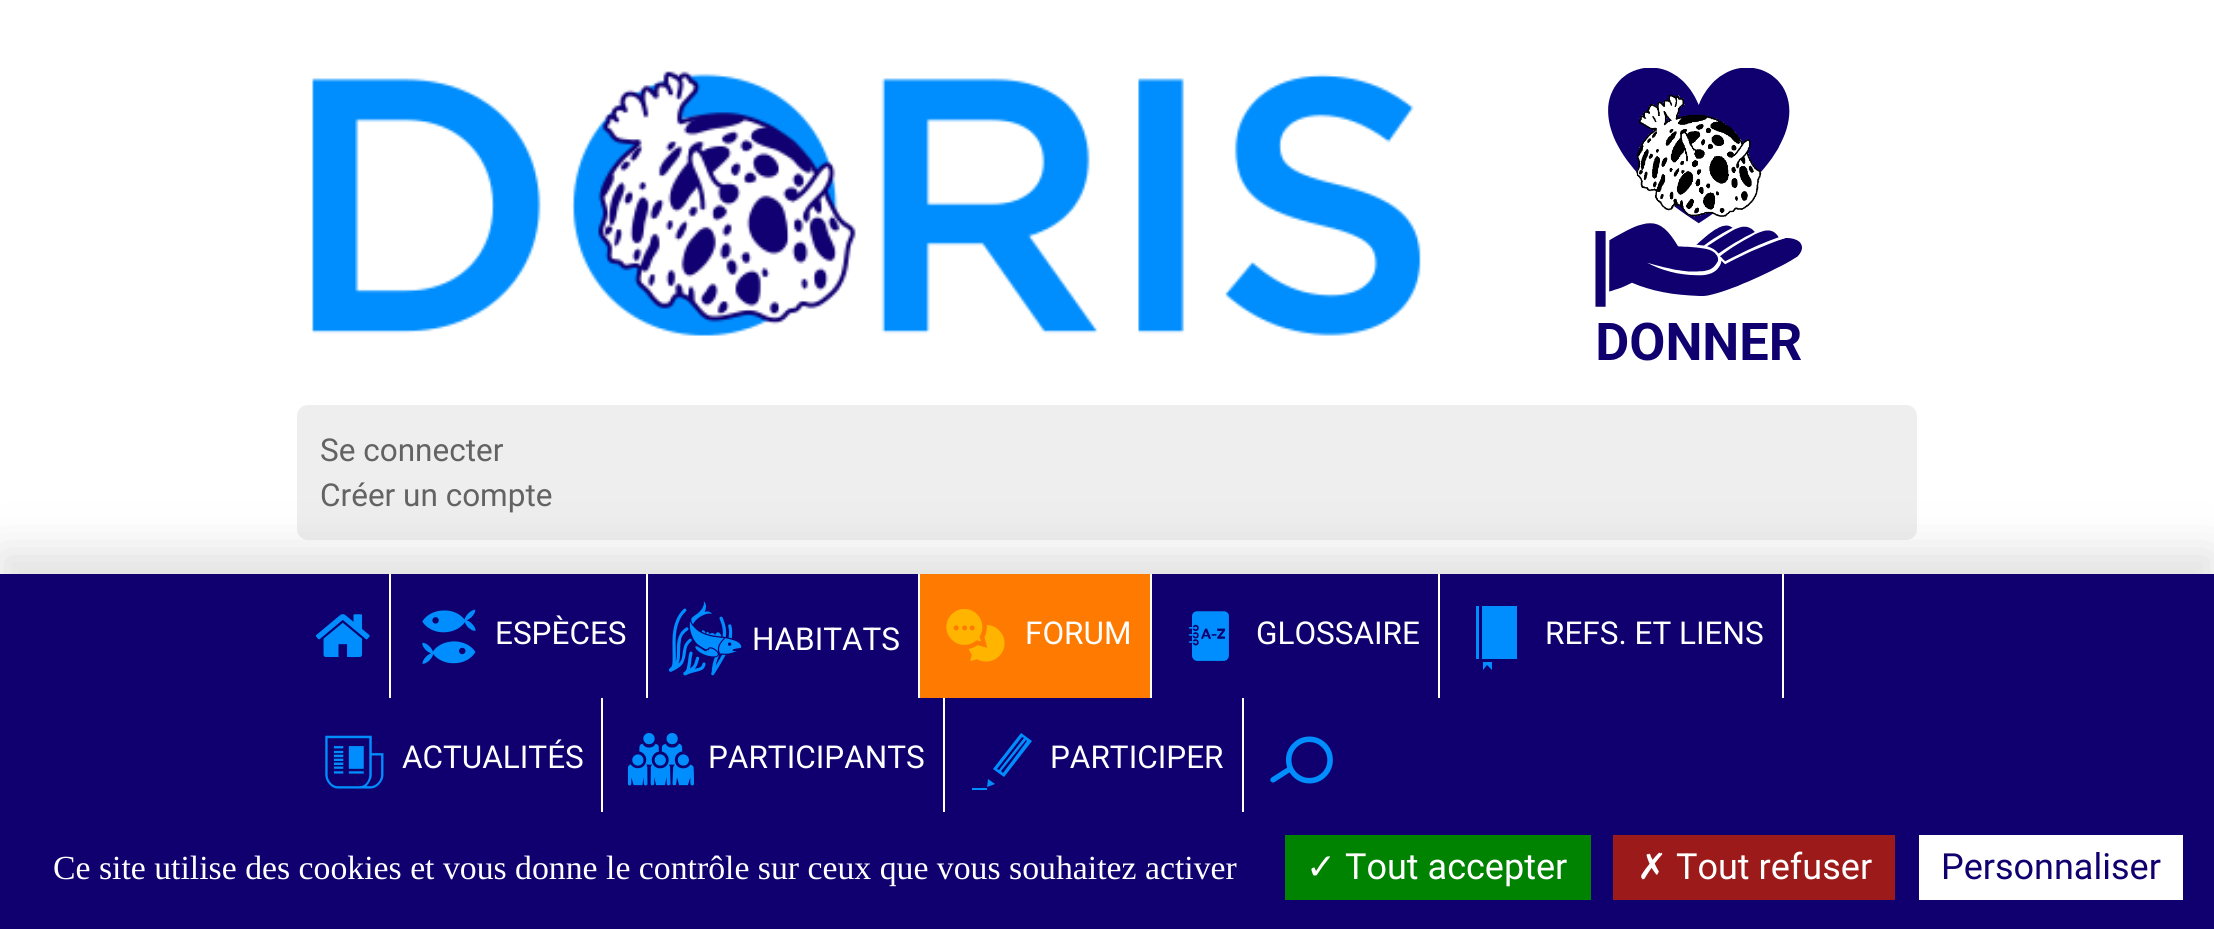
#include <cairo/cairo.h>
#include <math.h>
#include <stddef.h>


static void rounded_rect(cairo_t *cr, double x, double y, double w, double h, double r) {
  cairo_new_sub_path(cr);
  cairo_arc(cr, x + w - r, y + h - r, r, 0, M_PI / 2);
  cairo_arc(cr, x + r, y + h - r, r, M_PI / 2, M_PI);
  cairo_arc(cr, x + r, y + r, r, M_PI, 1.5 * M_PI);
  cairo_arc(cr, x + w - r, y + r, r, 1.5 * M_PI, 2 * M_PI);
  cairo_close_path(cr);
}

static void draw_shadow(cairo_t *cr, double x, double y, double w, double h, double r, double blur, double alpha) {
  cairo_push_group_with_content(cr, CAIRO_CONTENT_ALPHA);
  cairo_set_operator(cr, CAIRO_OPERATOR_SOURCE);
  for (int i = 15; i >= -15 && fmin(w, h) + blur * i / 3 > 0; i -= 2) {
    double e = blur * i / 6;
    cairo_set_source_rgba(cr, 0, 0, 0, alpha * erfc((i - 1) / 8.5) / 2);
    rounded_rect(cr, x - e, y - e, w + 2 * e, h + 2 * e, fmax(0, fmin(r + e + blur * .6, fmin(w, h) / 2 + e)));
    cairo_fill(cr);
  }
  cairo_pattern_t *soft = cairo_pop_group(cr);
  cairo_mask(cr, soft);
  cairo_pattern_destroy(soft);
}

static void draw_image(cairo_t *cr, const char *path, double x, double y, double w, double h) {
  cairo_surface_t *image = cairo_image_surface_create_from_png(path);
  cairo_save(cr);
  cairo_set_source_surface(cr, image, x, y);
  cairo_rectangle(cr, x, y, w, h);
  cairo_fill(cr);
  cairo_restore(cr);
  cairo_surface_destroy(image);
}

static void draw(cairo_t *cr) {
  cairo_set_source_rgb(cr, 1, 1, 1);
  cairo_paint(cr);
  draw_image(cr, "images/1.png", 312, 71, 1109, 265);
  draw_image(cr, "images/2.png", 1595, 68, 207, 293);
  cairo_set_source_rgb(cr, 238 / 255.0, 238 / 255.0, 238 / 255.0);
  rounded_rect(cr, 297, 405, 1620, 135, 11);
  cairo_fill(cr);
  cairo_set_source_rgb(cr, 99 / 255.0, 99 / 255.0, 99 / 255.0);
  draw_shadow(cr, 0, 551, 2214, 248, 0, 22.5, 0.2);
  cairo_set_source_rgb(cr, 16 / 255.0, 0, 111 / 255.0);
  cairo_rectangle(cr, 0, 574, 2214, 355);
  cairo_fill(cr);
  cairo_set_source_rgb(cr, 1, 1, 1);
  cairo_rectangle(cr, 389, 574, 2, 124);
  cairo_fill(cr);
  draw_image(cr, "images/3.png", 315, 614, 55, 43);
  cairo_rectangle(cr, 646, 574, 2, 124);
  cairo_fill(cr);
  draw_image(cr, "images/4.png", 422, 609, 54, 55);
  cairo_rectangle(cr, 918, 574, 2, 124);
  cairo_fill(cr);
  draw_image(cr, "images/5.png", 668, 601, 74, 75);
  cairo_rectangle(cr, 1150, 574, 2, 124);
  cairo_fill(cr);
  cairo_set_source_rgb(cr, 1, 122 / 255.0, 0);
  cairo_rectangle(cr, 920, 574, 230, 124);
  cairo_fill(cr);
  draw_image(cr, "images/6.png", 946, 609, 59, 53);
  cairo_set_source_rgb(cr, 1, 1, 1);
  cairo_rectangle(cr, 1438, 574, 2, 124);
  cairo_fill(cr);
  draw_image(cr, "images/7.png", 1188, 611, 41, 50);
  cairo_rectangle(cr, 1782, 574, 2, 124);
  cairo_fill(cr);
  cairo_set_source_rgb(cr, 0, 142 / 255.0, 1);
  cairo_new_path(cr);
  cairo_move_to(cr, 1483, 670);
  cairo_line_to(cr, 1483, 662);
  cairo_line_to(cr, 1492, 662);
  cairo_line_to(cr, 1492, 670);
  cairo_line_to(cr, 1487, 665);
  cairo_close_path(cr);
  cairo_move_to(cr, 1476, 659);
  cairo_line_to(cr, 1476, 606);
  cairo_line_to(cr, 1479, 606);
  cairo_line_to(cr, 1479, 659);
  cairo_close_path(cr);
  cairo_move_to(cr, 1482, 659);
  cairo_line_to(cr, 1482, 606);
  cairo_line_to(cr, 1517, 606);
  cairo_line_to(cr, 1517, 659);
  cairo_close_path(cr);
  cairo_fill(cr);
  cairo_set_source_rgb(cr, 1, 1, 1);
  cairo_rectangle(cr, 601, 698, 2, 114);
  cairo_fill(cr);
  draw_image(cr, "images/8.png", 325, 735, 59, 54);
  cairo_rectangle(cr, 943, 698, 2, 114);
  cairo_fill(cr);
  draw_image(cr, "images/9.png", 627, 733, 68, 53);
  cairo_rectangle(cr, 1242, 698, 2, 114);
  cairo_fill(cr);
  cairo_set_source_rgb(cr, 0, 142 / 255.0, 1);
  cairo_new_path(cr);
  cairo_move_to(cr, 1021, 733);
  cairo_line_to(cr, 1032, 741);
  cairo_line_to(cr, 1004, 777);
  cairo_line_to(cr, 993, 769);
  cairo_close_path(cr);
  cairo_move_to(cr, 997, 769);
  cairo_line_to(cr, 999, 770);
  cairo_line_to(cr, 1024, 738);
  cairo_line_to(cr, 1022, 737);
  cairo_close_path(cr);
  cairo_move_to(cr, 1003, 773);
  cairo_line_to(cr, 1027, 741);
  cairo_line_to(cr, 1026, 740);
  cairo_line_to(cr, 1001, 771);
  cairo_close_path(cr);
  cairo_move_to(cr, 995, 784);
  cairo_line_to(cr, 987, 787);
  cairo_line_to(cr, 987, 790);
  cairo_line_to(cr, 972, 790);
  cairo_line_to(cr, 972, 788);
  cairo_line_to(cr, 987, 788);
  cairo_line_to(cr, 988, 779);
  cairo_close_path(cr);
  cairo_fill(cr);
  draw_image(cr, "images/10.png", 1270, 736, 63, 48);
  cairo_set_source_rgb(cr, 0, 131 / 255.0, 0);
  cairo_rectangle(cr, 1285, 835, 306, 65);
  cairo_fill(cr);
  cairo_set_source_rgb(cr, 156 / 255.0, 26 / 255.0, 26 / 255.0);
  cairo_rectangle(cr, 1613, 835, 282, 65);
  cairo_fill(cr);
  cairo_set_source_rgb(cr, 1, 1, 1);
  cairo_rectangle(cr, 1919, 835, 264, 65);
  cairo_fill(cr);
  cairo_select_font_face(cr, "Roboto", CAIRO_FONT_SLANT_NORMAL, CAIRO_FONT_WEIGHT_NORMAL);
  cairo_set_font_size(cr, 31.5);
  cairo_set_source_rgb(cr, 99 / 255.0, 99 / 255.0, 99 / 255.0);
  cairo_move_to(cr, 320, 461);
  cairo_show_text(cr, "Se connecter");
  cairo_move_to(cr, 320, 506);
  cairo_show_text(cr, "Créer un compte");
  cairo_set_source_rgb(cr, 1, 1, 1);
  cairo_move_to(cr, 495, 644);
  cairo_show_text(cr, "ESPÈCES");
  cairo_move_to(cr, 752, 650);
  cairo_show_text(cr, "HABITATS");
  cairo_move_to(cr, 1025, 644);
  cairo_show_text(cr, "FORUM");
  cairo_move_to(cr, 1256, 644);
  cairo_show_text(cr, "GLOSSAIRE");
  cairo_move_to(cr, 1545, 644);
  cairo_show_text(cr, "REFS. ET LIENS");
  cairo_move_to(cr, 402, 768);
  cairo_show_text(cr, "ACTUALITÉS");
  cairo_move_to(cr, 708, 768);
  cairo_show_text(cr, "PARTICIPANTS");
  cairo_move_to(cr, 1050, 768);
  cairo_show_text(cr, "PARTICIPER");
  cairo_select_font_face(cr, "Liberation Serif", CAIRO_FONT_SLANT_NORMAL, CAIRO_FONT_WEIGHT_NORMAL);
  cairo_set_font_size(cr, 33.75);
  cairo_move_to(cr, 53, 879);
  cairo_show_text(cr, "Ce site utilise des cookies et vous donne le contrôle sur ceux que vous souhaitez activer");
  cairo_select_font_face(cr, "DejaVu Sans", CAIRO_FONT_SLANT_NORMAL, CAIRO_FONT_WEIGHT_NORMAL);
  cairo_set_font_size(cr, 36);
  cairo_move_to(cr, 1306, 879);
  cairo_show_text(cr, "✓");
  cairo_select_font_face(cr, "Roboto", CAIRO_FONT_SLANT_NORMAL, CAIRO_FONT_WEIGHT_NORMAL);
  cairo_move_to(cr, 1345, 879);
  cairo_show_text(cr, "Tout accepter");
  cairo_select_font_face(cr, "DejaVu Sans", CAIRO_FONT_SLANT_NORMAL, CAIRO_FONT_WEIGHT_NORMAL);
  cairo_move_to(cr, 1637, 879);
  cairo_show_text(cr, "✗");
  cairo_select_font_face(cr, "Roboto", CAIRO_FONT_SLANT_NORMAL, CAIRO_FONT_WEIGHT_NORMAL);
  cairo_move_to(cr, 1676, 879);
  cairo_show_text(cr, "Tout refuser");
  cairo_set_source_rgb(cr, 16 / 255.0, 0, 111 / 255.0);
  cairo_move_to(cr, 1941, 879);
  cairo_show_text(cr, "Personnaliser");
}

int main(void) {
  cairo_surface_t *surface = cairo_image_surface_create(CAIRO_FORMAT_RGB24, 2214, 929);
  cairo_t *cr = cairo_create(surface);
  cairo_font_options_t *options = cairo_font_options_create();
  cairo_font_options_set_hint_metrics(options, CAIRO_HINT_METRICS_OFF);
  cairo_font_options_set_hint_style(options, CAIRO_HINT_STYLE_NONE);
  cairo_set_font_options(cr, options);
  cairo_set_miter_limit(cr, 4);
  draw(cr);
  cairo_surface_write_to_png(surface, "out.png");
  cairo_font_options_destroy(options);
  cairo_destroy(cr);
  cairo_surface_destroy(surface);
  return 0;
}
